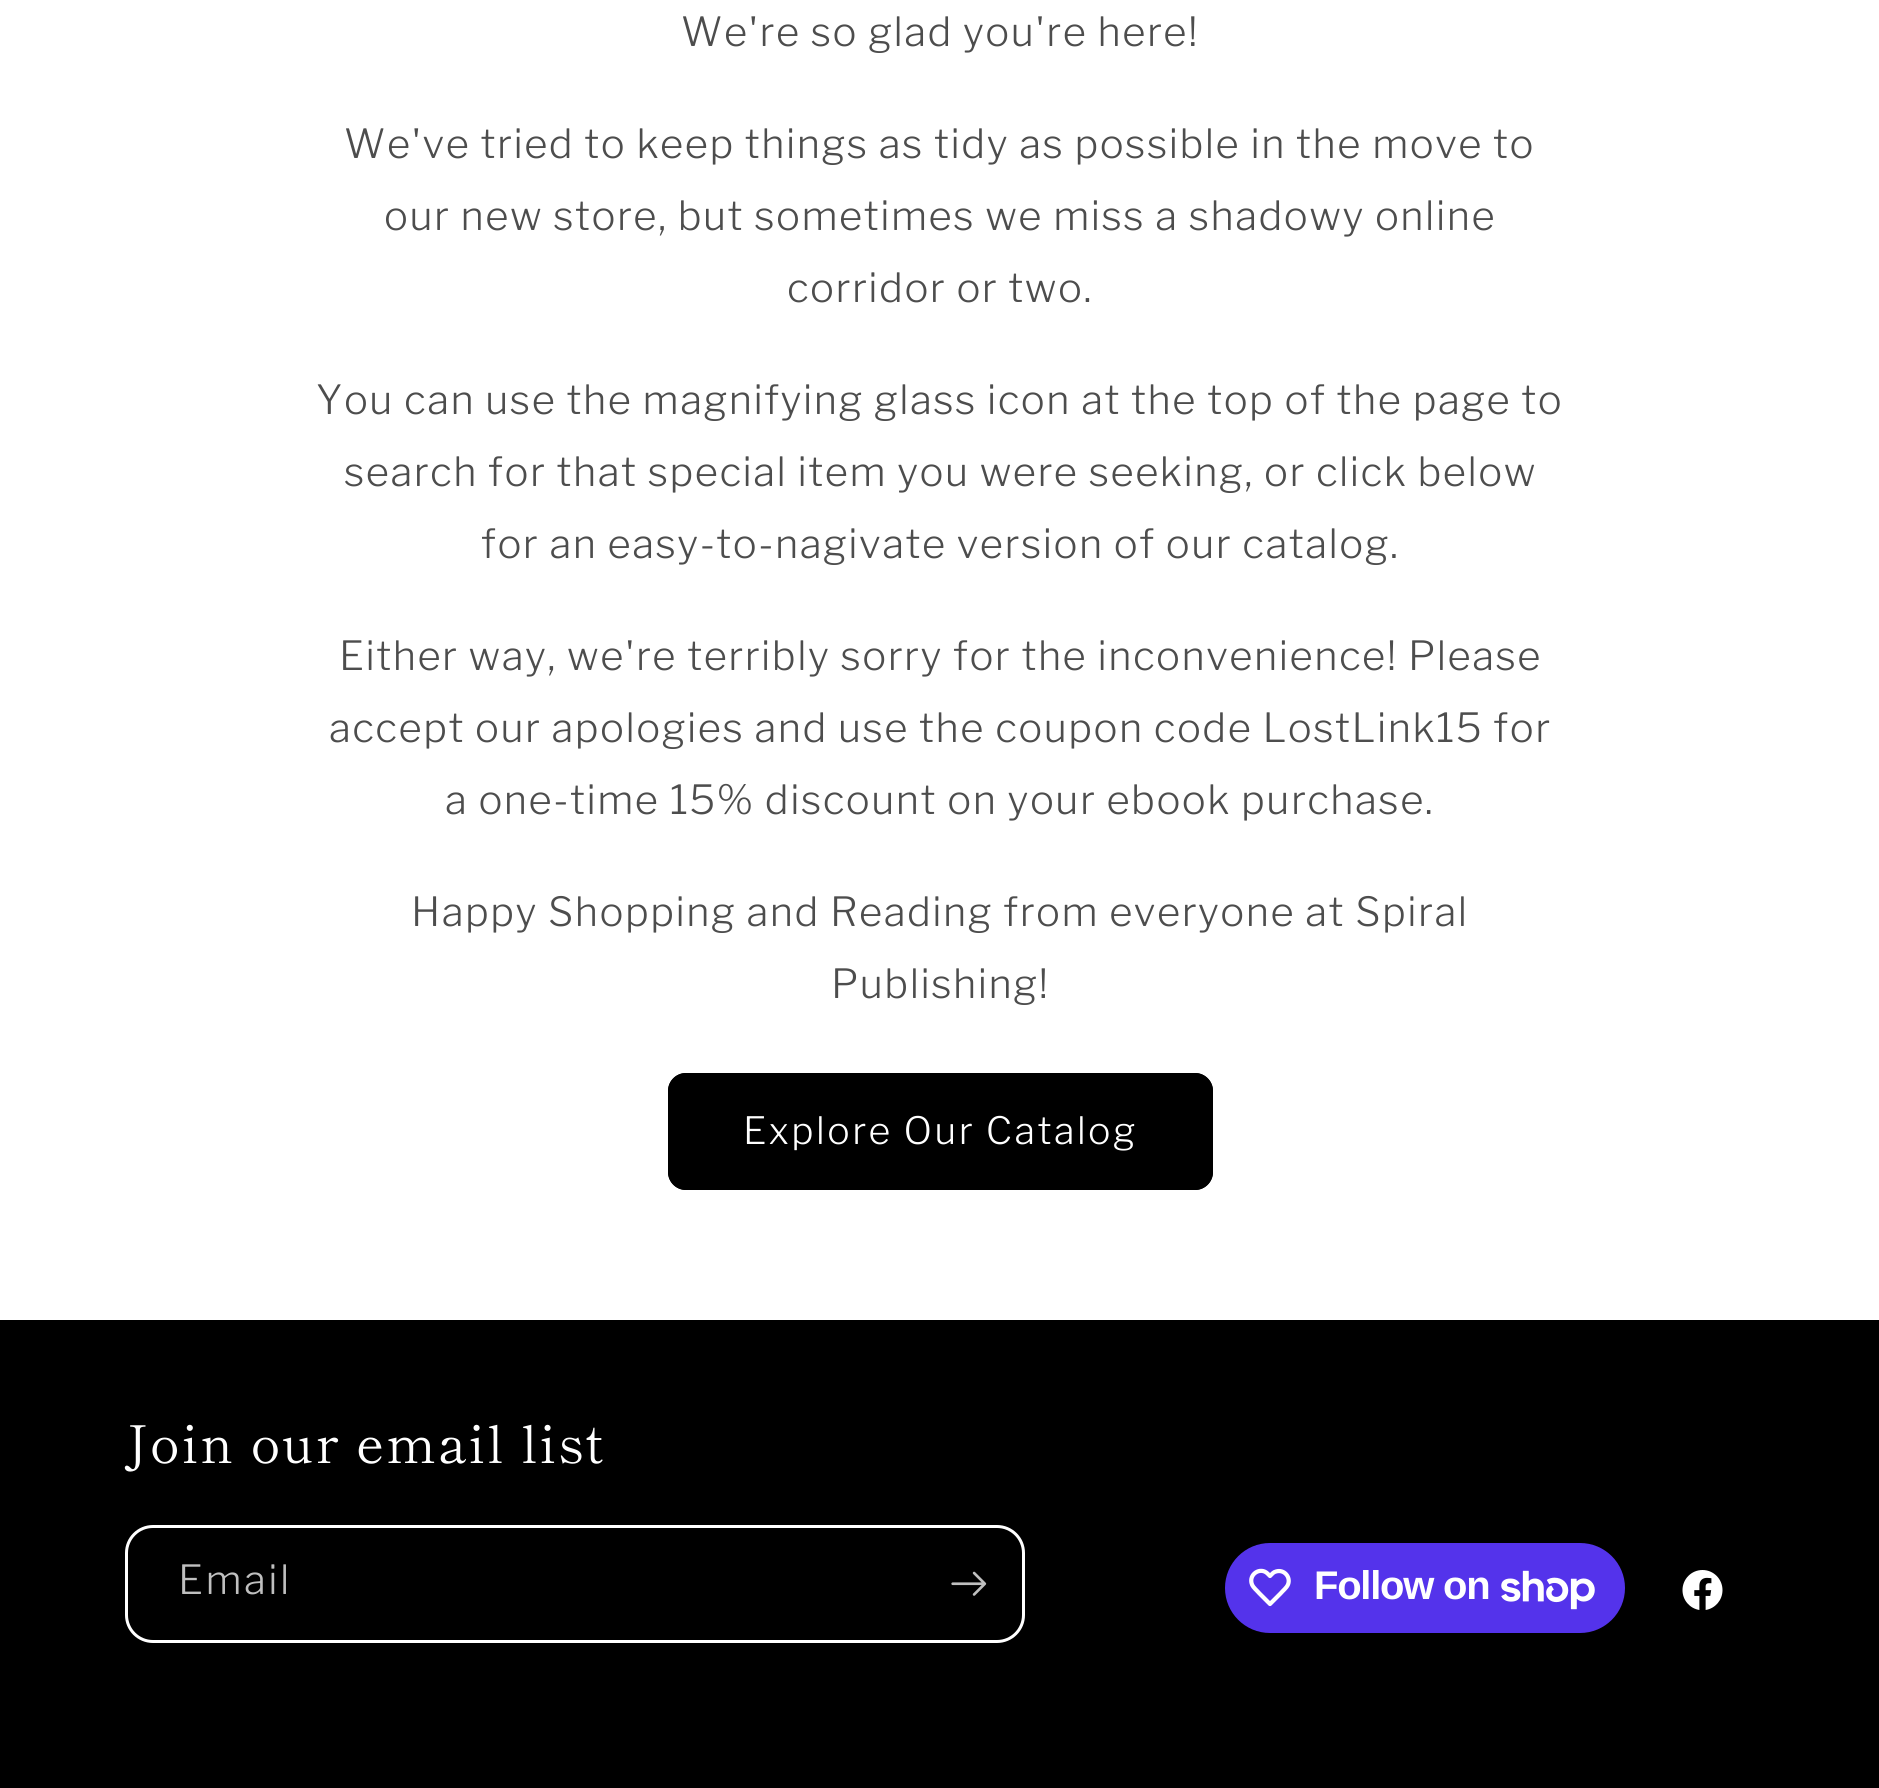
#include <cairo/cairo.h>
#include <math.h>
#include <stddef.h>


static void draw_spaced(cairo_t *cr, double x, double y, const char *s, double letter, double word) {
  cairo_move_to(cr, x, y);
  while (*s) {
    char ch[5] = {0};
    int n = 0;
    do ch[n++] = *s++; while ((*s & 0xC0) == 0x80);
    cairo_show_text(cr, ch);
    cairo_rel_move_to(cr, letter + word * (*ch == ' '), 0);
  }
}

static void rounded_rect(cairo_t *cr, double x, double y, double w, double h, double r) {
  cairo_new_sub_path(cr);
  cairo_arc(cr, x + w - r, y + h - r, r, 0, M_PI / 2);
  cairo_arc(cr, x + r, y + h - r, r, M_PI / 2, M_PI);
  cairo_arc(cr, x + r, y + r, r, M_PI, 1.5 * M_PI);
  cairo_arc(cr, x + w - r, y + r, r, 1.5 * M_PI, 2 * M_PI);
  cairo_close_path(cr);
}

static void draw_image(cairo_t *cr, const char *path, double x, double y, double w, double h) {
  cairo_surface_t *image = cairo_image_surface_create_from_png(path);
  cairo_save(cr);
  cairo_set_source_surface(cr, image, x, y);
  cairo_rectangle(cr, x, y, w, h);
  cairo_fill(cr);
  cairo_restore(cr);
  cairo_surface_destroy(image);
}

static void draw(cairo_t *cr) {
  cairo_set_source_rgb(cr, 1, 1, 1);
  cairo_paint(cr);
  cairo_set_source_rgb(cr, 0, 0, 0);
  rounded_rect(cr, 668, 1073, 545, 117, 18);
  cairo_fill(cr);
  rounded_rect(cr, 669.5, 1074.5, 542, 114, 16.5);
  cairo_set_line_width(cr, 3);
  cairo_stroke(cr);
  cairo_rectangle(cr, 0, 1320, 1879, 468);
  cairo_fill(cr);
  rounded_rect(cr, 126.5, 1526.5, 897, 115, 26.5);
  cairo_set_source_rgb(cr, 1, 1, 1);
  cairo_stroke(cr);
  draw_image(cr, "images/1.png", 951, 1571, 36, 25);
  cairo_set_source_rgb(cr, 84 / 255.0, 51 / 255.0, 235 / 255.0);
  rounded_rect(cr, 1225, 1543, 400, 90, 45);
  cairo_fill(cr);
  cairo_new_path(cr);
  cairo_move_to(cr, 1268, 1574);
  cairo_line_to(cr, 1270, 1576);
  cairo_curve_to(cr, 1272, 1574, 1273.5, 1572, 1276, 1571.5);
  cairo_curve_to(cr, 1284, 1569, 1291, 1577, 1288, 1584.5);
  cairo_curve_to(cr, 1286.5, 1588, 1283, 1590.5, 1280.5, 1593.5);
  cairo_line_to(cr, 1270, 1604);
  cairo_line_to(cr, 1259.5, 1593.5);
  cairo_curve_to(cr, 1257, 1590.5, 1253.5, 1588, 1252, 1584.5);
  cairo_curve_to(cr, 1248, 1574.5, 1260.5, 1566, 1268, 1574);
  cairo_close_path(cr);
  cairo_set_source_rgb(cr, 1, 1, 1);
  cairo_set_line_width(cr, 4.2);
  cairo_set_line_join(cr, CAIRO_LINE_JOIN_ROUND);
  cairo_stroke(cr);
  draw_image(cr, "images/2.png", 1501, 1570, 94, 40);
  draw_image(cr, "images/3.png", 1682, 1570, 41, 40);
  cairo_select_font_face(cr, "Libre Franklin Light", CAIRO_FONT_SLANT_NORMAL, CAIRO_FONT_WEIGHT_NORMAL);
  cairo_set_font_size(cr, 40);
  cairo_set_source_rgb(cr, 77 / 255.0, 77 / 255.0, 77 / 255.0);
  draw_spaced(cr, 681, 46, "We're so glad you're here!", 1.5, 0);
  draw_spaced(cr, 344, 158, "We've tried to keep things as tidy as possible in the move to", 1.5, 0);
  draw_spaced(cr, 384, 230, "our new store, but sometimes we miss a shadowy online", 1.5, 0);
  draw_spaced(cr, 787, 302, "corridor or two.", 1.5, 0);
  draw_spaced(cr, 316, 414, "You can use the magnifying glass icon at the top of the page to", 1.5, 0);
  draw_spaced(cr, 344, 486, "search for that special item you were seeking, or click below", 1.5, 0);
  draw_spaced(cr, 481, 558, "for an easy-to-nagivate version of our catalog.", 1.5, 0);
  draw_spaced(cr, 339, 670, "Either way, we're terribly sorry for the inconvenience! Please", 1.5, 0);
  draw_spaced(cr, 329, 742, "accept our apologies and use the coupon code LostLink15 for", 1.5, 0);
  draw_spaced(cr, 445, 814, "a one-time 15% discount on your ebook purchase.", 1.5, 0);
  draw_spaced(cr, 411, 926, "Happy Shopping and Reading from everyone at Spiral", 1.5, 0);
  draw_spaced(cr, 831, 998, "Publishing!", 1.5, 0);
  cairo_set_font_size(cr, 37.5);
  cairo_set_source_rgb(cr, 1, 1, 1);
  draw_spaced(cr, 743, 1144, "Explore Our Catalog", 2.5, 0);
  cairo_select_font_face(cr, "Shippori Mincho", CAIRO_FONT_SLANT_NORMAL, CAIRO_FONT_WEIGHT_NORMAL);
  cairo_set_font_size(cr, 52);
  draw_spaced(cr, 125, 1463, "Join our email list", 2, 0);
  cairo_select_font_face(cr, "Libre Franklin Light", CAIRO_FONT_SLANT_NORMAL, CAIRO_FONT_WEIGHT_NORMAL);
  cairo_set_font_size(cr, 40);
  cairo_set_source_rgb(cr, 191 / 255.0, 191 / 255.0, 191 / 255.0);
  draw_spaced(cr, 178, 1594, "Email", 2.5, 0);
  cairo_select_font_face(cr, "Liberation Sans", CAIRO_FONT_SLANT_NORMAL, CAIRO_FONT_WEIGHT_BOLD);
  cairo_set_source_rgb(cr, 1, 1, 1);
  draw_spaced(cr, 1314, 1599, "Follow on", -1.25, 0);
}

int main(void) {
  cairo_surface_t *surface = cairo_image_surface_create(CAIRO_FORMAT_RGB24, 1879, 1788);
  cairo_t *cr = cairo_create(surface);
  cairo_font_options_t *options = cairo_font_options_create();
  cairo_font_options_set_hint_metrics(options, CAIRO_HINT_METRICS_OFF);
  cairo_font_options_set_hint_style(options, CAIRO_HINT_STYLE_NONE);
  cairo_set_font_options(cr, options);
  cairo_set_miter_limit(cr, 4);
  draw(cr);
  cairo_surface_write_to_png(surface, "out.png");
  cairo_font_options_destroy(options);
  cairo_destroy(cr);
  cairo_surface_destroy(surface);
  return 0;
}
